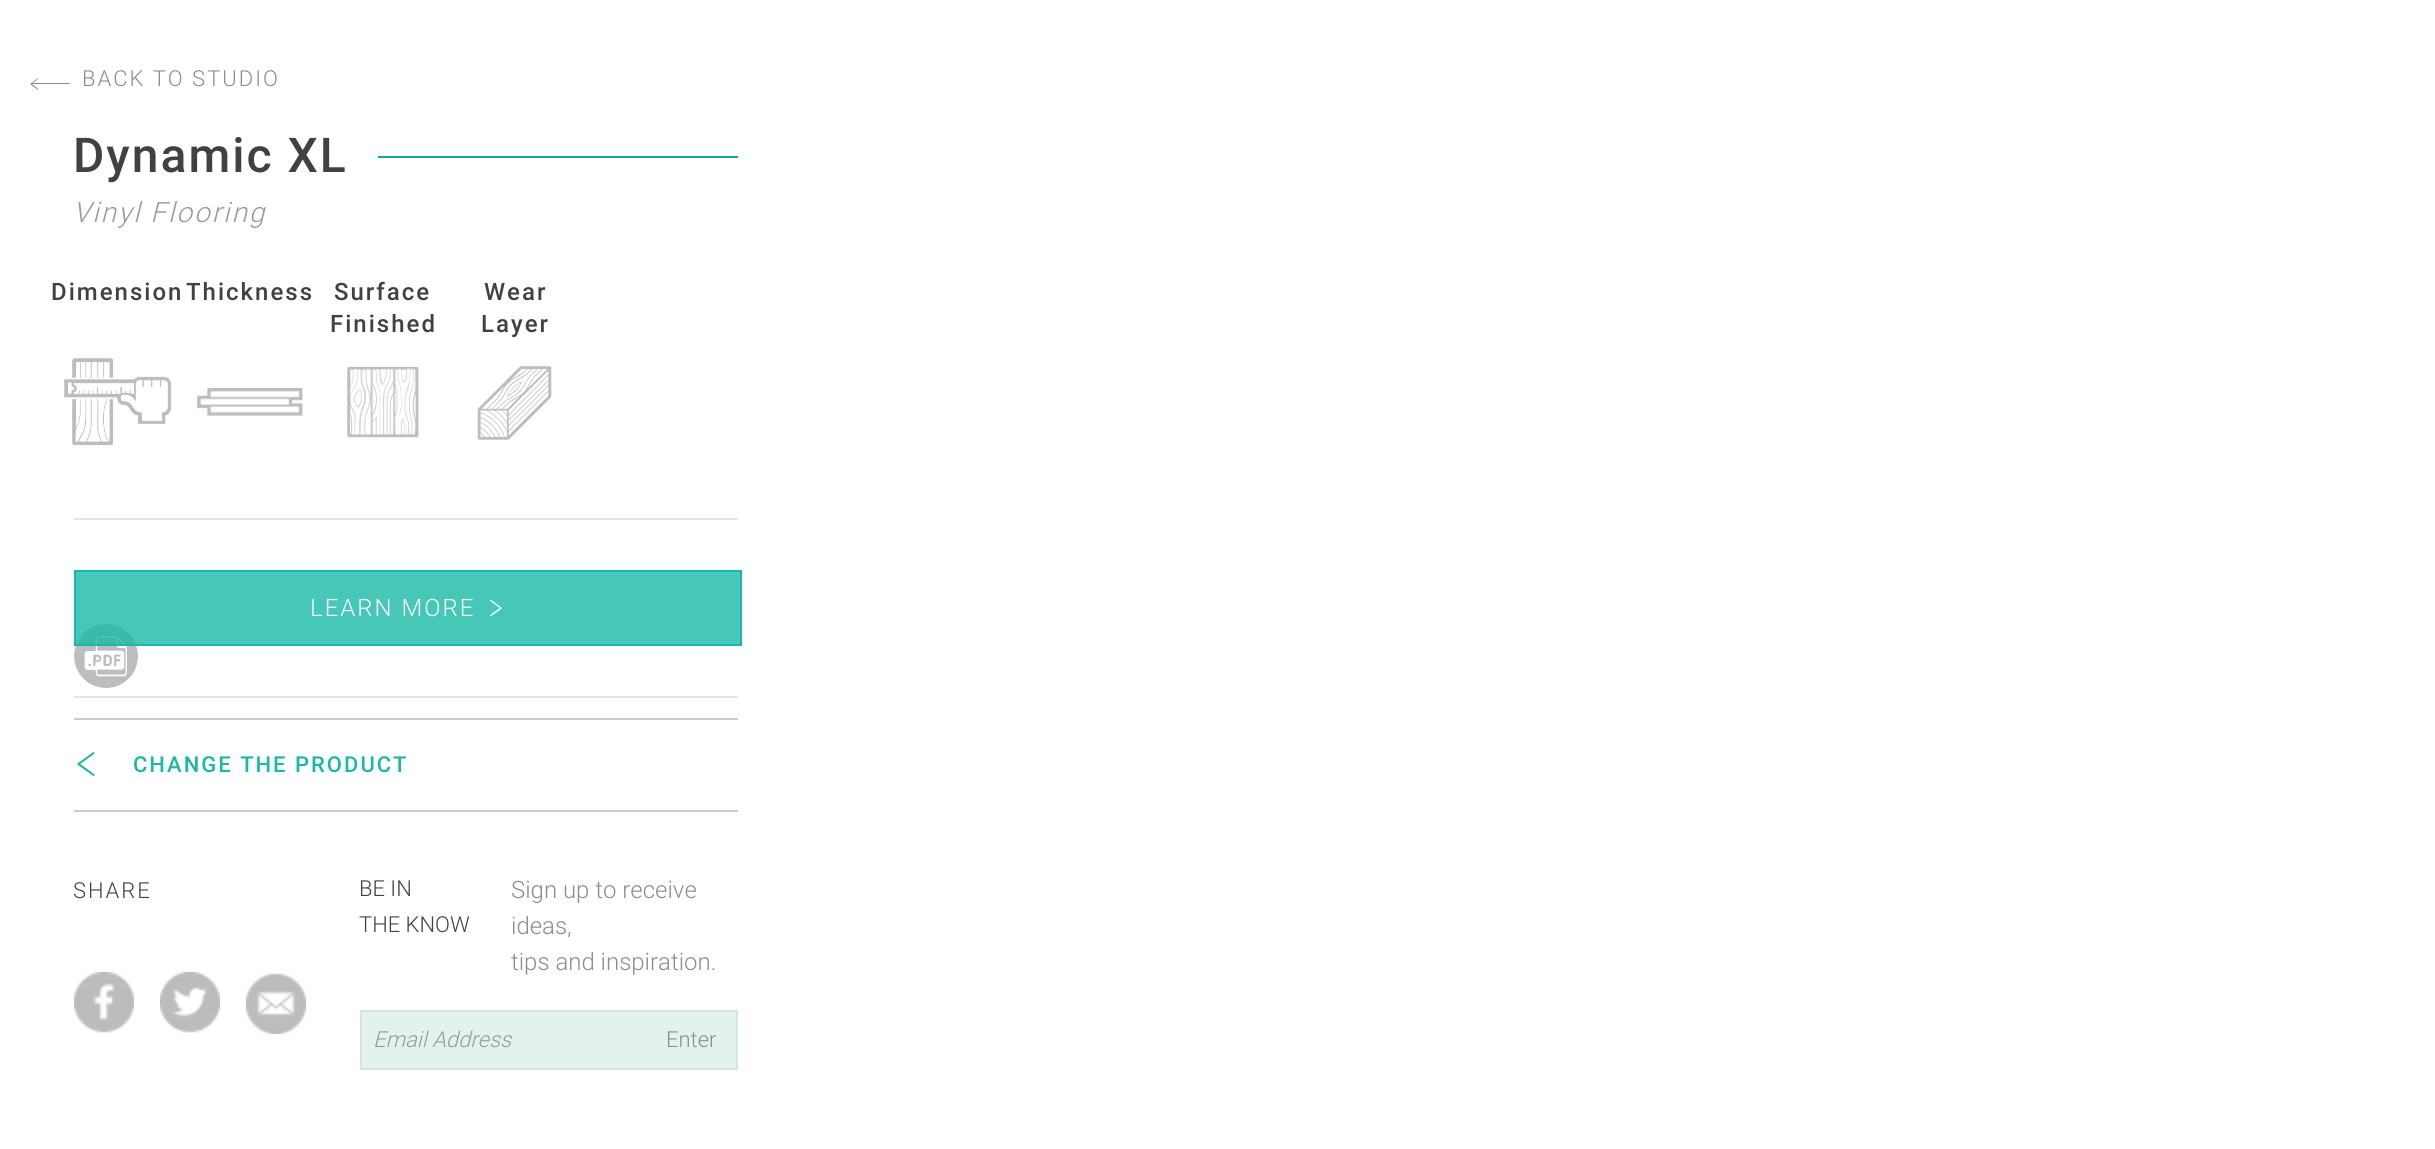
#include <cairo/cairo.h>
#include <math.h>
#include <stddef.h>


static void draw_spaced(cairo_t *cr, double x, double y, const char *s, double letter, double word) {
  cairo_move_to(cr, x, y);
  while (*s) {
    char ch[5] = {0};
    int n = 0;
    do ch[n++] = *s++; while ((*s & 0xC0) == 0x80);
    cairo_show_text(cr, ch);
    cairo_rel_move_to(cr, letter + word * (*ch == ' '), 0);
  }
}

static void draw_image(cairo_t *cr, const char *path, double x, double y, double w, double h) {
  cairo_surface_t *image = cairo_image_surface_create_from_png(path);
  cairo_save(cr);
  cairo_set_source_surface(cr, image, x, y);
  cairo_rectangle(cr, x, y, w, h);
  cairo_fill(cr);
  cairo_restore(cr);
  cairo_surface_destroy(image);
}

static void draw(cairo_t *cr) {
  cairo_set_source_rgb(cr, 1, 1, 1);
  cairo_paint(cr);
  cairo_set_source_rgb(cr, 140 / 255.0, 140 / 255.0, 140 / 255.0);
  cairo_new_path(cr);
  cairo_move_to(cr, 30, 84);
  cairo_line_to(cr, 38, 90);
  cairo_curve_to(cr, 39, 89, 36, 87, 32, 84);
  cairo_line_to(cr, 70, 84);
  cairo_curve_to(cr, 70, 84, 70, 83, 69, 83);
  cairo_line_to(cr, 32, 83);
  cairo_curve_to(cr, 33, 83, 39, 79, 38, 78);
  cairo_close_path(cr);
  cairo_fill(cr);
  cairo_set_source_rgb(cr, 18 / 255.0, 168 / 255.0, 157 / 255.0);
  cairo_rectangle(cr, 378, 156, 360, 2);
  cairo_fill(cr);
  draw_image(cr, "images/1.png", 64, 358, 108, 88);
  draw_image(cr, "images/2.png", 197, 388, 106, 28);
  draw_image(cr, "images/3.png", 347, 366, 72, 72);
  draw_image(cr, "images/4.png", 477, 366, 75, 74);
  cairo_set_source_rgb(cr, 229 / 255.0, 229 / 255.0, 229 / 255.0);
  cairo_rectangle(cr, 74, 518, 664, 2);
  cairo_fill(cr);
  draw_image(cr, "images/6.png", 74, 624, 64, 64);
  cairo_set_source_rgba(cr, 25 / 255.0, 185 / 255.0, 165 / 255.0, 0.8);
  cairo_rectangle(cr, 75, 571, 666, 74);
  cairo_fill_preserve(cr);
  cairo_set_source_rgb(cr, 25 / 255.0, 185 / 255.0, 165 / 255.0);
  cairo_stroke(cr);
  draw_image(cr, "images/5.png", 490, 600, 12, 16);
  cairo_set_source_rgb(cr, 229 / 255.0, 229 / 255.0, 229 / 255.0);
  cairo_rectangle(cr, 74, 696, 664, 2);
  cairo_fill(cr);
  cairo_set_source_rgb(cr, 204 / 255.0, 204 / 255.0, 204 / 255.0);
  cairo_rectangle(cr, 74, 718, 664, 2);
  cairo_fill(cr);
  cairo_rectangle(cr, 74, 810, 664, 2);
  cairo_fill(cr);
  draw_image(cr, "images/7.png", 77, 752, 18, 24);
  draw_image(cr, "images/8.png", 74, 972, 60, 61);
  draw_image(cr, "images/9.png", 160, 972, 60, 61);
  draw_image(cr, "images/10.png", 246, 973, 60, 61);
  cairo_set_source_rgb(cr, 227 / 255.0, 242 / 255.0, 237 / 255.0);
  cairo_rectangle(cr, 361, 1011, 376, 58);
  cairo_fill_preserve(cr);
  cairo_set_source_rgb(cr, 215 / 255.0, 229 / 255.0, 224 / 255.0);
  cairo_stroke(cr);
  cairo_select_font_face(cr, "Roboto Light", CAIRO_FONT_SLANT_NORMAL, CAIRO_FONT_WEIGHT_NORMAL);
  cairo_set_font_size(cr, 22);
  cairo_set_source_rgb(cr, 140 / 255.0, 140 / 255.0, 140 / 255.0);
  draw_spaced(cr, 82, 86, "BACK TO STUDIO", 2, 0);
  cairo_select_font_face(cr, "Roboto Medium", CAIRO_FONT_SLANT_NORMAL, CAIRO_FONT_WEIGHT_NORMAL);
  cairo_set_font_size(cr, 48);
  cairo_set_source_rgb(cr, 65 / 255.0, 64 / 255.0, 66 / 255.0);
  draw_spaced(cr, 73, 172, "Dynamic XL", 2, 0);
  cairo_select_font_face(cr, "Roboto Light", CAIRO_FONT_SLANT_ITALIC, CAIRO_FONT_WEIGHT_NORMAL);
  cairo_set_font_size(cr, 28);
  cairo_set_source_rgb(cr, 153 / 255.0, 153 / 255.0, 153 / 255.0);
  draw_spaced(cr, 73, 222, "Vinyl Flooring", 2, 0);
  cairo_select_font_face(cr, "Roboto Medium", CAIRO_FONT_SLANT_NORMAL, CAIRO_FONT_WEIGHT_NORMAL);
  cairo_set_font_size(cr, 24);
  cairo_set_source_rgb(cr, 65 / 255.0, 64 / 255.0, 66 / 255.0);
  draw_spaced(cr, 51, 300, "Dimension", 2, 0);
  draw_spaced(cr, 186, 300, "Thickness", 2, 0);
  draw_spaced(cr, 334, 300, "Surface", 2, 0);
  draw_spaced(cr, 330, 332, "Finished", 2, 0);
  draw_spaced(cr, 484, 300, "Wear", 2, 0);
  draw_spaced(cr, 481, 332, "Layer", 2, 0);
  cairo_select_font_face(cr, "Roboto Light", CAIRO_FONT_SLANT_NORMAL, CAIRO_FONT_WEIGHT_NORMAL);
  cairo_set_source_rgb(cr, 1, 1, 1);
  draw_spaced(cr, 310, 616, "LEARN MORE", 2, 0);
  cairo_select_font_face(cr, "Roboto Medium", CAIRO_FONT_SLANT_NORMAL, CAIRO_FONT_WEIGHT_NORMAL);
  cairo_set_font_size(cr, 22);
  cairo_set_source_rgb(cr, 25 / 255.0, 185 / 255.0, 165 / 255.0);
  draw_spaced(cr, 133, 772, "CHANGE THE PRODUCT", 2, 0);
  cairo_select_font_face(cr, "Roboto Light", CAIRO_FONT_SLANT_NORMAL, CAIRO_FONT_WEIGHT_NORMAL);
  cairo_set_source_rgb(cr, 65 / 255.0, 64 / 255.0, 66 / 255.0);
  draw_spaced(cr, 73, 898, "SHARE", 2, 0);
  cairo_move_to(cr, 359, 896);
  cairo_show_text(cr, "BE IN");
  cairo_move_to(cr, 359, 932);
  cairo_show_text(cr, "THE KNOW");
  cairo_set_font_size(cr, 24);
  cairo_set_source_rgb(cr, 140 / 255.0, 140 / 255.0, 140 / 255.0);
  cairo_move_to(cr, 511, 898);
  cairo_show_text(cr, "Sign up to receive");
  cairo_move_to(cr, 511, 934);
  cairo_show_text(cr, "ideas,");
  cairo_move_to(cr, 511, 970);
  cairo_show_text(cr, "tips and inspiration.");
  cairo_select_font_face(cr, "Roboto Light", CAIRO_FONT_SLANT_ITALIC, CAIRO_FONT_WEIGHT_NORMAL);
  cairo_set_font_size(cr, 22);
  cairo_set_source_rgb(cr, 153 / 255.0, 153 / 255.0, 153 / 255.0);
  cairo_move_to(cr, 373, 1047);
  cairo_show_text(cr, "Email Address");
  cairo_select_font_face(cr, "Roboto Light", CAIRO_FONT_SLANT_NORMAL, CAIRO_FONT_WEIGHT_NORMAL);
  cairo_set_source_rgb(cr, 140 / 255.0, 140 / 255.0, 140 / 255.0);
  cairo_move_to(cr, 666, 1047);
  cairo_show_text(cr, "Enter");
}

int main(void) {
  cairo_surface_t *surface = cairo_image_surface_create(CAIRO_FORMAT_RGB24, 2435, 1149);
  cairo_t *cr = cairo_create(surface);
  cairo_font_options_t *options = cairo_font_options_create();
  cairo_font_options_set_hint_metrics(options, CAIRO_HINT_METRICS_OFF);
  cairo_font_options_set_hint_style(options, CAIRO_HINT_STYLE_NONE);
  cairo_set_font_options(cr, options);
  cairo_set_miter_limit(cr, 4);
  draw(cr);
  cairo_surface_write_to_png(surface, "out.png");
  cairo_font_options_destroy(options);
  cairo_destroy(cr);
  cairo_surface_destroy(surface);
  return 0;
}
